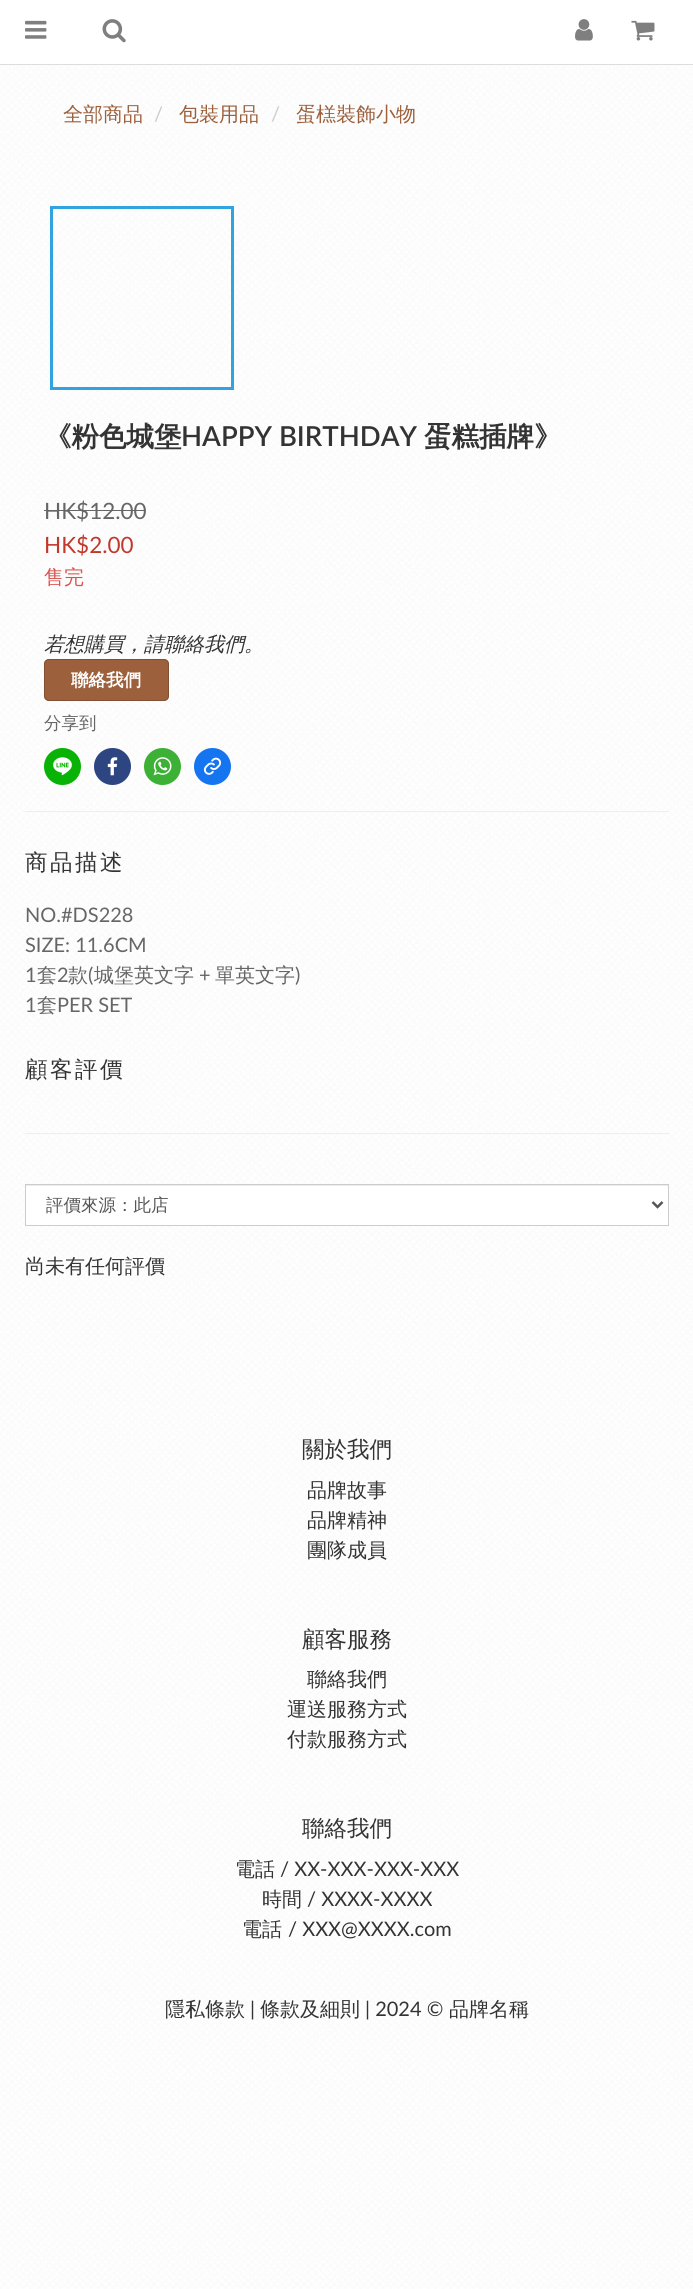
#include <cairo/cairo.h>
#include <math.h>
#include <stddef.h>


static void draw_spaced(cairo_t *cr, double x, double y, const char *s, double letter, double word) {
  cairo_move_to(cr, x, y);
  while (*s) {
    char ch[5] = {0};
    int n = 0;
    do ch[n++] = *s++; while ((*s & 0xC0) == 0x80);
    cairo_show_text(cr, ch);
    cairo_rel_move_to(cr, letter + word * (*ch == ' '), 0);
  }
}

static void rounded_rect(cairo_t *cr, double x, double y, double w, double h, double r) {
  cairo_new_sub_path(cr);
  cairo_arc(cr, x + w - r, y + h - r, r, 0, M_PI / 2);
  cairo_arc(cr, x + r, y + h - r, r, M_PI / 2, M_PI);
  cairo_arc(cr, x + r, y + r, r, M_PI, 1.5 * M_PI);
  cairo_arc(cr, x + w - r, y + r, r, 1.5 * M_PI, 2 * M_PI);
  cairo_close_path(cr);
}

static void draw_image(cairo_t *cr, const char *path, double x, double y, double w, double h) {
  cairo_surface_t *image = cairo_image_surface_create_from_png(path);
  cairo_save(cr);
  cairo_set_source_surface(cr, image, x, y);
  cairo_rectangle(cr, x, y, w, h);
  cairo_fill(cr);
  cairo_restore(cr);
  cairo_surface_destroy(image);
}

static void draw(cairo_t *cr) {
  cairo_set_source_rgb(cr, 1, 1, 1);
  cairo_paint(cr);
  draw_image(cr, "images/1.png", 0, 65, 693, 2224);
  cairo_set_source_rgb(cr, 221 / 255.0, 221 / 255.0, 221 / 255.0);
  cairo_rectangle(cr, 0, 64, 693, 1);
  cairo_fill(cr);
  draw_image(cr, "images/2.png", 25, 20, 22, 19);
  draw_image(cr, "images/3.png", 102, 19, 24, 24);
  draw_image(cr, "images/4.png", 575, 19, 18, 22);
  draw_image(cr, "images/5.png", 631, 20, 24, 21);
  cairo_rectangle(cr, 51.5, 207.5, 181, 181);
  cairo_set_source_rgb(cr, 48 / 255.0, 164 / 255.0, 225 / 255.0);
  cairo_set_line_width(cr, 3);
  cairo_stroke(cr);
  cairo_set_source_rgb(cr, 102 / 255.0, 102 / 255.0, 102 / 255.0);
  cairo_rectangle(cr, 44, 510, 102, 1);
  cairo_fill(cr);
  cairo_set_source_rgb(cr, 156 / 255.0, 96 / 255.0, 60 / 255.0);
  rounded_rect(cr, 44, 659, 125, 42, 5);
  cairo_fill(cr);
  rounded_rect(cr, 44.5, 659.5, 124, 41, 4.5);
  cairo_set_source_rgba(cr, 112 / 255.0, 69 / 255.0, 43 / 255.0, 0.6);
  cairo_set_line_width(cr, 1);
  cairo_stroke(cr);
  cairo_set_source_rgb(cr, 9 / 255.0, 179 / 255.0, 5 / 255.0);
  cairo_arc(cr, 62.5, 766.5, 18.5, 0, 2 * M_PI);
  cairo_fill(cr);
  draw_image(cr, "images/6.png", 53, 757, 19, 19);
  cairo_set_source_rgb(cr, 45 / 255.0, 70 / 255.0, 130 / 255.0);
  cairo_arc(cr, 112.5, 766.5, 18.5, 0, 2 * M_PI);
  cairo_fill(cr);
  draw_image(cr, "images/7.png", 107, 757, 11, 19);
  cairo_set_source_rgb(cr, 60 / 255.0, 177 / 255.0, 54 / 255.0);
  cairo_arc(cr, 162.5, 766.5, 18.5, 0, 2 * M_PI);
  cairo_fill(cr);
  draw_image(cr, "images/8.png", 153, 757, 19, 19);
  cairo_set_source_rgb(cr, 21 / 255.0, 117 / 255.0, 240 / 255.0);
  cairo_arc(cr, 212.5, 766.5, 18.5, 0, 2 * M_PI);
  cairo_fill(cr);
  draw_image(cr, "images/9.png", 203, 757, 19, 18);
  cairo_set_source_rgb(cr, 238 / 255.0, 238 / 255.0, 238 / 255.0);
  cairo_rectangle(cr, 25, 811, 644, 1);
  cairo_fill(cr);
  cairo_rectangle(cr, 25, 1133, 644, 1);
  cairo_fill(cr);
  cairo_set_source_rgb(cr, 1, 1, 1);
  cairo_rectangle(cr, 26, 1186, 642, 39);
  cairo_fill(cr);
  cairo_set_source_rgb(cr, 236 / 255.0, 236 / 255.0, 236 / 255.0);
  cairo_rectangle(cr, 26, 1185, 642, 1);
  cairo_fill(cr);
  cairo_rectangle(cr, 25.5, 1184.5, 643, 41);
  cairo_set_source_rgb(cr, 204 / 255.0, 204 / 255.0, 204 / 255.0);
  cairo_stroke(cr);
  cairo_new_path(cr);
  cairo_move_to(cr, 652.5, 1202);
  cairo_line_to(cr, 657.5, 1207);
  cairo_line_to(cr, 662.5, 1202);
  cairo_set_source_rgb(cr, 85 / 255.0, 85 / 255.0, 85 / 255.0);
  cairo_set_line_width(cr, 2.5);
  cairo_stroke(cr);
  cairo_select_font_face(cr, "WenQuanYi Zen Hei Medium", CAIRO_FONT_SLANT_NORMAL, CAIRO_FONT_WEIGHT_NORMAL);
  cairo_set_font_size(cr, 20);
  cairo_set_source_rgb(cr, 156 / 255.0, 96 / 255.0, 60 / 255.0);
  cairo_move_to(cr, 63, 121);
  cairo_show_text(cr, "全部商品");
  cairo_select_font_face(cr, "Lato", CAIRO_FONT_SLANT_NORMAL, CAIRO_FONT_WEIGHT_NORMAL);
  cairo_set_source_rgb(cr, 204 / 255.0, 204 / 255.0, 204 / 255.0);
  cairo_move_to(cr, 154, 121);
  cairo_show_text(cr, "/");
  cairo_select_font_face(cr, "WenQuanYi Zen Hei Medium", CAIRO_FONT_SLANT_NORMAL, CAIRO_FONT_WEIGHT_NORMAL);
  cairo_set_source_rgb(cr, 156 / 255.0, 96 / 255.0, 60 / 255.0);
  cairo_move_to(cr, 179, 121);
  cairo_show_text(cr, "包裝用品");
  cairo_select_font_face(cr, "Lato", CAIRO_FONT_SLANT_NORMAL, CAIRO_FONT_WEIGHT_NORMAL);
  cairo_set_source_rgb(cr, 204 / 255.0, 204 / 255.0, 204 / 255.0);
  cairo_move_to(cr, 271, 121);
  cairo_show_text(cr, "/");
  cairo_select_font_face(cr, "WenQuanYi Zen Hei Medium", CAIRO_FONT_SLANT_NORMAL, CAIRO_FONT_WEIGHT_NORMAL);
  cairo_set_source_rgb(cr, 156 / 255.0, 96 / 255.0, 60 / 255.0);
  cairo_move_to(cr, 296, 121);
  cairo_show_text(cr, "蛋榚裝飾小物");
  cairo_select_font_face(cr, "WenQuanYi Zen Hei", CAIRO_FONT_SLANT_NORMAL, CAIRO_FONT_WEIGHT_BOLD);
  cairo_set_font_size(cr, 27.5);
  cairo_set_source_rgb(cr, 51 / 255.0, 51 / 255.0, 51 / 255.0);
  cairo_move_to(cr, 44, 446);
  cairo_show_text(cr, "《粉色城堡");
  cairo_select_font_face(cr, "Lato SemiBold", CAIRO_FONT_SLANT_NORMAL, CAIRO_FONT_WEIGHT_NORMAL);
  cairo_move_to(cr, 181, 446);
  cairo_show_text(cr, "HAPPY BIRTHDAY");
  cairo_select_font_face(cr, "WenQuanYi Zen Hei", CAIRO_FONT_SLANT_NORMAL, CAIRO_FONT_WEIGHT_BOLD);
  cairo_move_to(cr, 424, 446);
  cairo_show_text(cr, "蛋糕插牌》");
  cairo_select_font_face(cr, "Lato", CAIRO_FONT_SLANT_NORMAL, CAIRO_FONT_WEIGHT_NORMAL);
  cairo_set_font_size(cr, 22.5);
  cairo_set_source_rgb(cr, 102 / 255.0, 102 / 255.0, 102 / 255.0);
  cairo_move_to(cr, 44, 519);
  cairo_show_text(cr, "HK$12.00");
  cairo_set_source_rgb(cr, 192 / 255.0, 57 / 255.0, 43 / 255.0);
  cairo_move_to(cr, 44, 553);
  cairo_show_text(cr, "HK$2.00");
  cairo_select_font_face(cr, "WenQuanYi Zen Hei Medium", CAIRO_FONT_SLANT_NORMAL, CAIRO_FONT_WEIGHT_NORMAL);
  cairo_set_font_size(cr, 20);
  cairo_set_source_rgb(cr, 217 / 255.0, 83 / 255.0, 79 / 255.0);
  cairo_move_to(cr, 44, 584);
  cairo_show_text(cr, "售完");
  cairo_select_font_face(cr, "WenQuanYi Zen Hei Medium", CAIRO_FONT_SLANT_ITALIC, CAIRO_FONT_WEIGHT_NORMAL);
  cairo_set_source_rgb(cr, 51 / 255.0, 51 / 255.0, 51 / 255.0);
  cairo_move_to(cr, 44, 651);
  cairo_show_text(cr, "若想購買，請聯絡我們。");
  cairo_select_font_face(cr, "WenQuanYi Zen Hei", CAIRO_FONT_SLANT_NORMAL, CAIRO_FONT_WEIGHT_BOLD);
  cairo_set_font_size(cr, 17.5);
  cairo_set_source_rgb(cr, 1, 1, 1);
  cairo_move_to(cr, 71, 686);
  cairo_show_text(cr, "聯絡我們");
  cairo_select_font_face(cr, "WenQuanYi Zen Hei Medium", CAIRO_FONT_SLANT_NORMAL, CAIRO_FONT_WEIGHT_NORMAL);
  cairo_set_source_rgb(cr, 102 / 255.0, 102 / 255.0, 102 / 255.0);
  cairo_move_to(cr, 44, 729);
  cairo_show_text(cr, "分享到");
  cairo_set_font_size(cr, 22.5);
  cairo_set_source_rgb(cr, 51 / 255.0, 51 / 255.0, 51 / 255.0);
  draw_spaced(cr, 25, 870, "商品描述", 2.5, 0);
  cairo_select_font_face(cr, "Lato", CAIRO_FONT_SLANT_NORMAL, CAIRO_FONT_WEIGHT_NORMAL);
  cairo_set_font_size(cr, 20);
  cairo_set_source_rgb(cr, 102 / 255.0, 102 / 255.0, 102 / 255.0);
  cairo_move_to(cr, 25, 922);
  cairo_show_text(cr, "NO.#DS228");
  cairo_move_to(cr, 25, 952);
  cairo_show_text(cr, "SIZE: 11.6CM");
  cairo_move_to(cr, 25, 982);
  cairo_show_text(cr, "1");
  cairo_select_font_face(cr, "WenQuanYi Zen Hei Medium", CAIRO_FONT_SLANT_NORMAL, CAIRO_FONT_WEIGHT_NORMAL);
  cairo_move_to(cr, 37, 982);
  cairo_show_text(cr, "套");
  cairo_select_font_face(cr, "Lato", CAIRO_FONT_SLANT_NORMAL, CAIRO_FONT_WEIGHT_NORMAL);
  cairo_move_to(cr, 57, 982);
  cairo_show_text(cr, "2");
  cairo_select_font_face(cr, "WenQuanYi Zen Hei Medium", CAIRO_FONT_SLANT_NORMAL, CAIRO_FONT_WEIGHT_NORMAL);
  cairo_move_to(cr, 68, 982);
  cairo_show_text(cr, "款");
  cairo_select_font_face(cr, "Lato", CAIRO_FONT_SLANT_NORMAL, CAIRO_FONT_WEIGHT_NORMAL);
  cairo_move_to(cr, 88, 982);
  cairo_show_text(cr, "(");
  cairo_select_font_face(cr, "WenQuanYi Zen Hei Medium", CAIRO_FONT_SLANT_NORMAL, CAIRO_FONT_WEIGHT_NORMAL);
  cairo_move_to(cr, 94, 982);
  cairo_show_text(cr, "城堡英文字");
  cairo_select_font_face(cr, "Lato", CAIRO_FONT_SLANT_NORMAL, CAIRO_FONT_WEIGHT_NORMAL);
  cairo_move_to(cr, 199, 982);
  cairo_show_text(cr, "+");
  cairo_select_font_face(cr, "WenQuanYi Zen Hei Medium", CAIRO_FONT_SLANT_NORMAL, CAIRO_FONT_WEIGHT_NORMAL);
  cairo_move_to(cr, 215, 982);
  cairo_show_text(cr, "單英文字");
  cairo_select_font_face(cr, "Lato", CAIRO_FONT_SLANT_NORMAL, CAIRO_FONT_WEIGHT_NORMAL);
  cairo_move_to(cr, 295, 982);
  cairo_show_text(cr, ")");
  cairo_move_to(cr, 25, 1012);
  cairo_show_text(cr, "1");
  cairo_select_font_face(cr, "WenQuanYi Zen Hei Medium", CAIRO_FONT_SLANT_NORMAL, CAIRO_FONT_WEIGHT_NORMAL);
  cairo_move_to(cr, 37, 1012);
  cairo_show_text(cr, "套");
  cairo_select_font_face(cr, "Lato", CAIRO_FONT_SLANT_NORMAL, CAIRO_FONT_WEIGHT_NORMAL);
  cairo_move_to(cr, 57, 1012);
  cairo_show_text(cr, "PER SET");
  cairo_select_font_face(cr, "WenQuanYi Zen Hei Medium", CAIRO_FONT_SLANT_NORMAL, CAIRO_FONT_WEIGHT_NORMAL);
  cairo_set_font_size(cr, 22.5);
  cairo_set_source_rgb(cr, 51 / 255.0, 51 / 255.0, 51 / 255.0);
  draw_spaced(cr, 25, 1077, "顧客評價", 2.5, 0);
  cairo_set_font_size(cr, 17.5);
  cairo_set_source_rgb(cr, 85 / 255.0, 85 / 255.0, 85 / 255.0);
  cairo_move_to(cr, 46, 1211);
  cairo_show_text(cr, "評價來源：此店");
  cairo_set_font_size(cr, 20);
  cairo_set_source_rgb(cr, 51 / 255.0, 51 / 255.0, 51 / 255.0);
  cairo_move_to(cr, 25, 1273);
  cairo_show_text(cr, "尚未有任何評價");
  cairo_set_font_size(cr, 22.5);
  cairo_move_to(cr, 302, 1457);
  cairo_show_text(cr, "關於我們");
  cairo_set_font_size(cr, 20);
  cairo_move_to(cr, 307, 1497);
  cairo_show_text(cr, "品牌故事");
  cairo_move_to(cr, 307, 1527);
  cairo_show_text(cr, "品牌精神");
  cairo_move_to(cr, 307, 1557);
  cairo_show_text(cr, "團隊成員");
  cairo_set_font_size(cr, 22.5);
  cairo_move_to(cr, 302, 1647);
  cairo_show_text(cr, "顧客服務");
  cairo_set_font_size(cr, 20);
  cairo_move_to(cr, 307, 1686);
  cairo_show_text(cr, "聯絡我們");
  cairo_move_to(cr, 287, 1716);
  cairo_show_text(cr, "運送服務方式");
  cairo_move_to(cr, 287, 1746);
  cairo_show_text(cr, "付款服務方式");
  cairo_set_font_size(cr, 22.5);
  cairo_move_to(cr, 302, 1836);
  cairo_show_text(cr, "聯絡我們");
  cairo_set_font_size(cr, 20);
  cairo_move_to(cr, 235, 1876);
  cairo_show_text(cr, "電話");
  cairo_select_font_face(cr, "Lato", CAIRO_FONT_SLANT_NORMAL, CAIRO_FONT_WEIGHT_NORMAL);
  cairo_move_to(cr, 280, 1876);
  cairo_show_text(cr, "/ XX-XXX-XXX-XXX");
  cairo_select_font_face(cr, "WenQuanYi Zen Hei Medium", CAIRO_FONT_SLANT_NORMAL, CAIRO_FONT_WEIGHT_NORMAL);
  cairo_move_to(cr, 262, 1906);
  cairo_show_text(cr, "時間");
  cairo_select_font_face(cr, "Lato", CAIRO_FONT_SLANT_NORMAL, CAIRO_FONT_WEIGHT_NORMAL);
  cairo_move_to(cr, 307, 1906);
  cairo_show_text(cr, "/ XXXX-XXXX");
  cairo_select_font_face(cr, "WenQuanYi Zen Hei Medium", CAIRO_FONT_SLANT_NORMAL, CAIRO_FONT_WEIGHT_NORMAL);
  cairo_move_to(cr, 242, 1936);
  cairo_show_text(cr, "電話");
  cairo_select_font_face(cr, "Lato", CAIRO_FONT_SLANT_NORMAL, CAIRO_FONT_WEIGHT_NORMAL);
  cairo_move_to(cr, 288, 1936);
  cairo_show_text(cr, "/ XXX@XXXX.com");
  cairo_select_font_face(cr, "WenQuanYi Zen Hei Medium", CAIRO_FONT_SLANT_NORMAL, CAIRO_FONT_WEIGHT_NORMAL);
  cairo_move_to(cr, 165, 2016);
  cairo_show_text(cr, "隱私條款");
  cairo_select_font_face(cr, "Lato", CAIRO_FONT_SLANT_NORMAL, CAIRO_FONT_WEIGHT_NORMAL);
  cairo_move_to(cr, 250, 2016);
  cairo_show_text(cr, "|");
  cairo_select_font_face(cr, "WenQuanYi Zen Hei Medium", CAIRO_FONT_SLANT_NORMAL, CAIRO_FONT_WEIGHT_NORMAL);
  cairo_move_to(cr, 260, 2016);
  cairo_show_text(cr, "條款及細則");
  cairo_select_font_face(cr, "Lato", CAIRO_FONT_SLANT_NORMAL, CAIRO_FONT_WEIGHT_NORMAL);
  cairo_move_to(cr, 365, 2016);
  cairo_show_text(cr, "| 2024 ©");
  cairo_select_font_face(cr, "WenQuanYi Zen Hei Medium", CAIRO_FONT_SLANT_NORMAL, CAIRO_FONT_WEIGHT_NORMAL);
  cairo_move_to(cr, 449, 2016);
  cairo_show_text(cr, "品牌名稱");
}

int main(void) {
  cairo_surface_t *surface = cairo_image_surface_create(CAIRO_FORMAT_RGB24, 693, 2289);
  cairo_t *cr = cairo_create(surface);
  cairo_font_options_t *options = cairo_font_options_create();
  cairo_font_options_set_hint_metrics(options, CAIRO_HINT_METRICS_OFF);
  cairo_font_options_set_hint_style(options, CAIRO_HINT_STYLE_NONE);
  cairo_set_font_options(cr, options);
  cairo_set_miter_limit(cr, 4);
  draw(cr);
  cairo_surface_write_to_png(surface, "out.png");
  cairo_font_options_destroy(options);
  cairo_destroy(cr);
  cairo_surface_destroy(surface);
  return 0;
}
